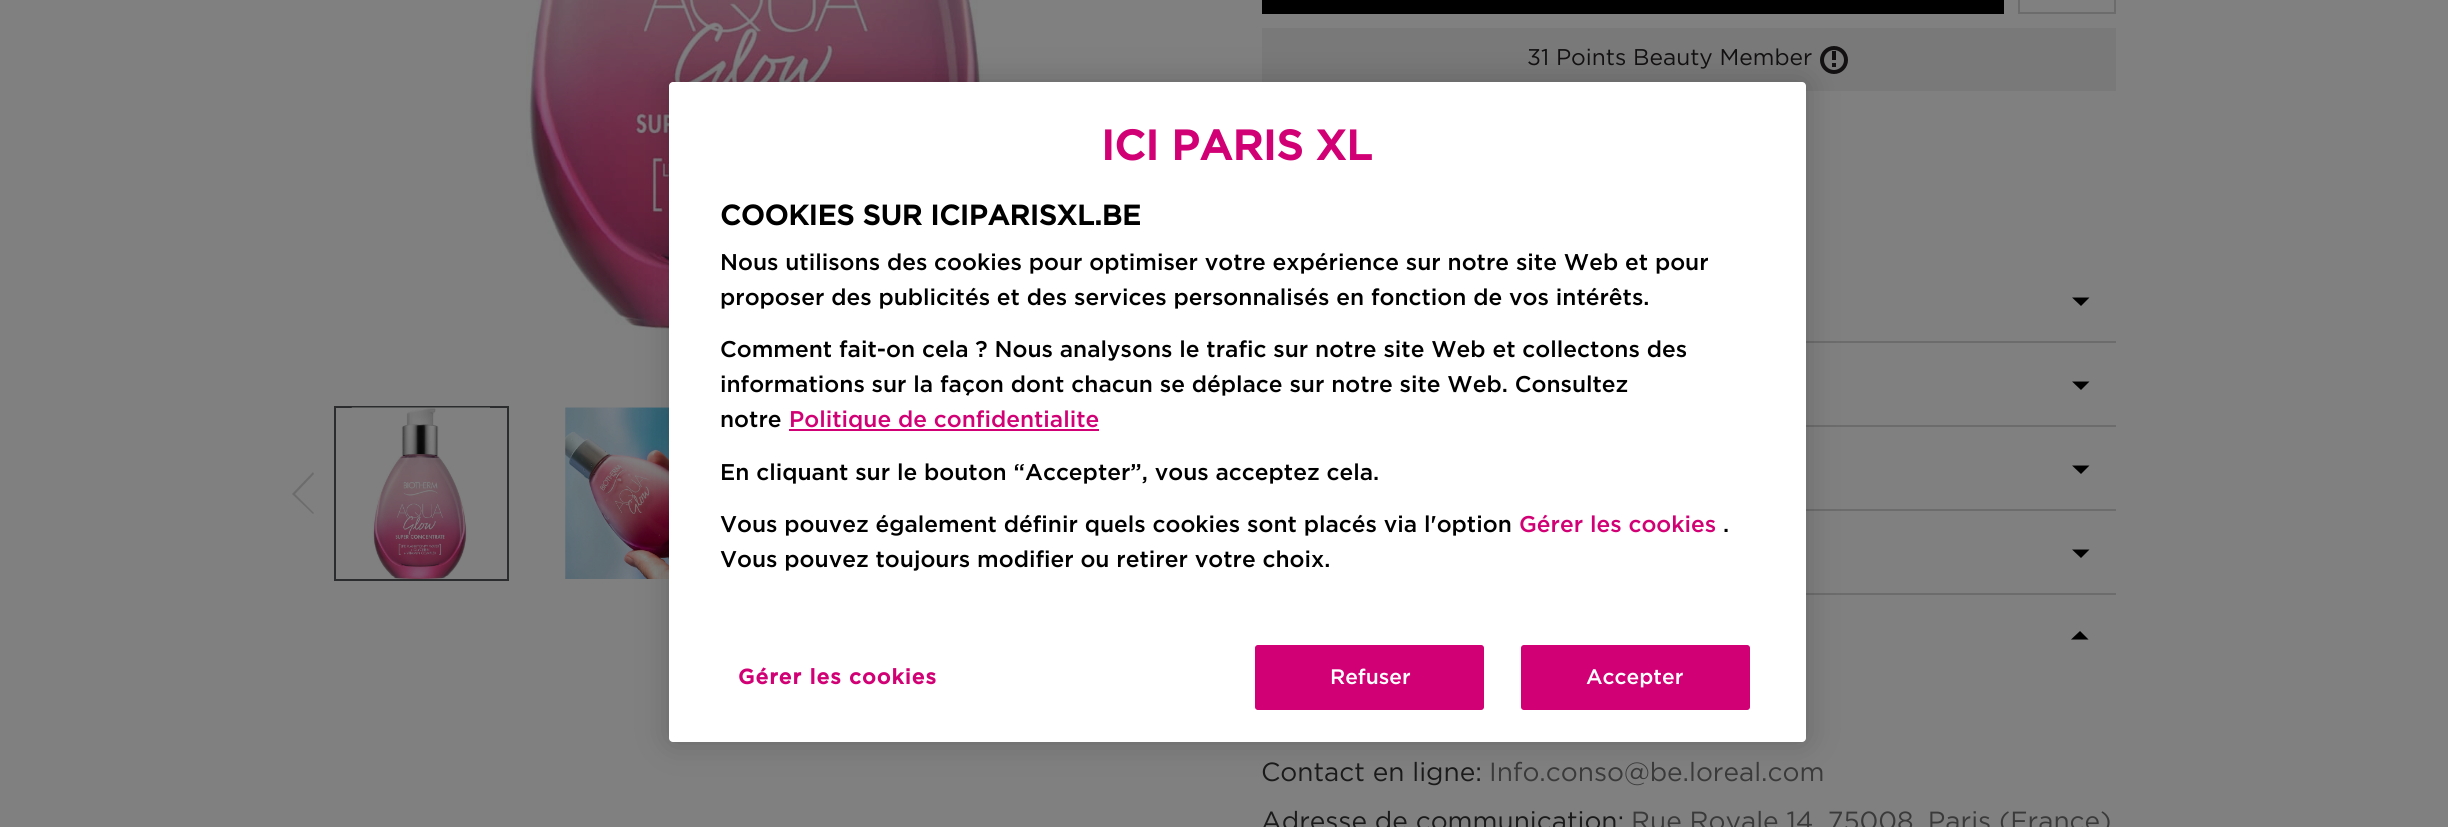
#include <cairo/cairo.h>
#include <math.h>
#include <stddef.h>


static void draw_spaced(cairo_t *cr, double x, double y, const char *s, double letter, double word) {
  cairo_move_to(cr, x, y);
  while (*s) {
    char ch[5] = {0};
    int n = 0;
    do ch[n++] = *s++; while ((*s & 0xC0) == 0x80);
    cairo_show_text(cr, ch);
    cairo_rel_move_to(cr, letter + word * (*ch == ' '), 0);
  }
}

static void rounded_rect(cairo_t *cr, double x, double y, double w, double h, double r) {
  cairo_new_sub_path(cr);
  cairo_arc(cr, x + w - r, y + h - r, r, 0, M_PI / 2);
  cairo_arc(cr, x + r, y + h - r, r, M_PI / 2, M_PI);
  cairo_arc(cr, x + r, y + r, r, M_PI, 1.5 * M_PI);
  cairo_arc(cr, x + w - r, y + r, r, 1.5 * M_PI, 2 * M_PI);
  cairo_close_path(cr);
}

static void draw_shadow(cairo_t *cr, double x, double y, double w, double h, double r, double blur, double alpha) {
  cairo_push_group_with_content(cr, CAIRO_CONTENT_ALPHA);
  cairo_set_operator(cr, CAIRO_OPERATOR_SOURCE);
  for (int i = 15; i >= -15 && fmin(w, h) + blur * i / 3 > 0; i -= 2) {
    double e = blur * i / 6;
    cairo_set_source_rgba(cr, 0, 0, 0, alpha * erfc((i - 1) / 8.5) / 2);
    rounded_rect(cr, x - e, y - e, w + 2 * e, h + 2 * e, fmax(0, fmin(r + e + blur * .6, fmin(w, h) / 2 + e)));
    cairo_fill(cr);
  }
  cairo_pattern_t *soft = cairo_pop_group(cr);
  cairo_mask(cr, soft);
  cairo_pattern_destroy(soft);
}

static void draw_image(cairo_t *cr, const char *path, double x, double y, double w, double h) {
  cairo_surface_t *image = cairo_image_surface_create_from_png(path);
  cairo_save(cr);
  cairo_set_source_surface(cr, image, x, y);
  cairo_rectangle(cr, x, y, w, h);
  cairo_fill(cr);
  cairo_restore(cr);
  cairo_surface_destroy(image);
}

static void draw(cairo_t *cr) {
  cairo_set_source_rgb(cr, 128 / 255.0, 128 / 255.0, 128 / 255.0);
  cairo_paint(cr);
  draw_image(cr, "images/1.png", 526, 0, 457, 331);
  cairo_set_source_rgb(cr, 108 / 255.0, 108 / 255.0, 108 / 255.0);
  cairo_new_path(cr);
  cairo_move_to(cr, 313, 514);
  cairo_line_to(cr, 314, 513);
  cairo_line_to(cr, 295, 494);
  cairo_line_to(cr, 314, 474);
  cairo_line_to(cr, 313, 472);
  cairo_line_to(cr, 292, 494);
  cairo_close_path(cr);
  cairo_fill(cr);
  cairo_rectangle(cr, 335, 407, 173, 173);
  cairo_set_source_rgb(cr, 42 / 255.0, 44 / 255.0, 45 / 255.0);
  cairo_stroke(cr);
  draw_image(cr, "images/2.png", 351, 407, 139, 172);
  draw_image(cr, "images/3.png", 565, 407, 104, 172);
  cairo_set_source_rgb(cr, 0, 0, 0);
  cairo_rectangle(cr, 1262, 0, 742, 14);
  cairo_fill(cr);
  cairo_rectangle(cr, 2019, -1, 96, 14);
  cairo_set_source_rgb(cr, 108 / 255.0, 108 / 255.0, 108 / 255.0);
  cairo_stroke(cr);
  cairo_set_source_rgb(cr, 121 / 255.0, 121 / 255.0, 121 / 255.0);
  cairo_rectangle(cr, 1262, 28, 854, 63);
  cairo_fill(cr);
  cairo_arc(cr, 1834, 60, 12, 0, 2 * M_PI);
  cairo_set_source_rgb(cr, 18 / 255.0, 16 / 255.0, 17 / 255.0);
  cairo_set_line_width(cr, 4);
  cairo_stroke(cr);
  cairo_rectangle(cr, 1832, 51, 4, 9);
  cairo_fill(cr);
  cairo_rectangle(cr, 1832, 63, 4, 4);
  cairo_fill(cr);
  cairo_set_source_rgb(cr, 108 / 255.0, 108 / 255.0, 108 / 255.0);
  cairo_rectangle(cr, 1806, 341, 310, 2);
  cairo_fill(cr);
  cairo_set_source_rgb(cr, 0, 0, 0);
  cairo_new_path(cr);
  cairo_move_to(cr, 2072, 297.5);
  cairo_line_to(cr, 2089.5, 297.5);
  cairo_line_to(cr, 2081, 306);
  cairo_close_path(cr);
  cairo_fill(cr);
  cairo_set_source_rgb(cr, 108 / 255.0, 108 / 255.0, 108 / 255.0);
  cairo_rectangle(cr, 1806, 425, 310, 2);
  cairo_fill(cr);
  cairo_set_source_rgb(cr, 0, 0, 0);
  cairo_new_path(cr);
  cairo_move_to(cr, 2072, 381.5);
  cairo_line_to(cr, 2089.5, 381.5);
  cairo_line_to(cr, 2081, 390);
  cairo_close_path(cr);
  cairo_fill(cr);
  cairo_set_source_rgb(cr, 108 / 255.0, 108 / 255.0, 108 / 255.0);
  cairo_rectangle(cr, 1806, 509, 310, 2);
  cairo_fill(cr);
  cairo_set_source_rgb(cr, 0, 0, 0);
  cairo_new_path(cr);
  cairo_move_to(cr, 2072, 465.5);
  cairo_line_to(cr, 2089.5, 465.5);
  cairo_line_to(cr, 2081, 474);
  cairo_close_path(cr);
  cairo_fill(cr);
  cairo_set_source_rgb(cr, 108 / 255.0, 108 / 255.0, 108 / 255.0);
  cairo_rectangle(cr, 1806, 593, 310, 2);
  cairo_fill(cr);
  cairo_set_source_rgb(cr, 0, 0, 0);
  cairo_new_path(cr);
  cairo_move_to(cr, 2072, 549.5);
  cairo_line_to(cr, 2089.5, 549.5);
  cairo_line_to(cr, 2081, 558);
  cairo_close_path(cr);
  cairo_fill(cr);
  cairo_new_path(cr);
  cairo_move_to(cr, 2071, 639.5);
  cairo_line_to(cr, 2088.5, 639.5);
  cairo_line_to(cr, 2080, 631);
  cairo_close_path(cr);
  cairo_fill(cr);
  cairo_set_source_rgb(cr, 0, 0, 0);
  draw_shadow(cr, 669, 82, 1137, 660, 4, 16, 0.2);
  cairo_set_source_rgb(cr, 1, 1, 1);
  rounded_rect(cr, 669, 82, 1137, 660, 4);
  cairo_fill(cr);
  cairo_set_source_rgb(cr, 209 / 255.0, 0, 116 / 255.0);
  cairo_rectangle(cr, 789, 429, 310, 2);
  cairo_fill(cr);
  rounded_rect(cr, 1253, 643, 233, 69, 5);
  cairo_fill_preserve(cr);
  cairo_set_source_rgb(cr, 1, 1, 1);
  cairo_stroke(cr);
  cairo_set_source_rgb(cr, 209 / 255.0, 0, 116 / 255.0);
  rounded_rect(cr, 1519, 643, 233, 69, 5);
  cairo_fill_preserve(cr);
  cairo_set_source_rgb(cr, 1, 1, 1);
  cairo_stroke(cr);
  cairo_select_font_face(cr, "Gotham", CAIRO_FONT_SLANT_NORMAL, CAIRO_FONT_WEIGHT_NORMAL);
  cairo_set_font_size(cr, 22.75);
  cairo_set_source_rgb(cr, 18 / 255.0, 16 / 255.0, 17 / 255.0);
  cairo_move_to(cr, 1527, 65);
  cairo_show_text(cr, "31 Points Beauty Member");
  cairo_set_font_size(cr, 26.25);
  cairo_set_source_rgb(cr, 26 / 255.0, 26 / 255.0, 26 / 255.0);
  cairo_move_to(cr, 1261, 781);
  cairo_show_text(cr, "Contact en ligne:");
  cairo_set_source_rgb(cr, 58 / 255.0, 58 / 255.0, 58 / 255.0);
  cairo_move_to(cr, 1489, 781);
  cairo_show_text(cr, "Info.conso@be.loreal.com");
  cairo_set_source_rgb(cr, 26 / 255.0, 26 / 255.0, 26 / 255.0);
  cairo_move_to(cr, 1261, 830);
  cairo_show_text(cr, "Adresse de communication:");
  cairo_set_source_rgb(cr, 58 / 255.0, 58 / 255.0, 58 / 255.0);
  cairo_move_to(cr, 1631, 830);
  cairo_show_text(cr, "Rue Royale 14, 75008, Paris (France)");
  cairo_select_font_face(cr, "Gotham", CAIRO_FONT_SLANT_NORMAL, CAIRO_FONT_WEIGHT_BOLD);
  cairo_set_font_size(cr, 42);
  cairo_set_source_rgb(cr, 209 / 255.0, 0, 116 / 255.0);
  cairo_move_to(cr, 1101, 160);
  cairo_show_text(cr, "ICI PARIS XL");
  cairo_set_font_size(cr, 28);
  cairo_set_source_rgb(cr, 0, 0, 0);
  cairo_move_to(cr, 720, 225);
  cairo_show_text(cr, "COOKIES SUR ICIPARISXL.BE");
  cairo_select_font_face(cr, "Gotham Medium", CAIRO_FONT_SLANT_NORMAL, CAIRO_FONT_WEIGHT_NORMAL);
  cairo_set_font_size(cr, 22.75);
  cairo_move_to(cr, 720, 270);
  cairo_show_text(cr, "Nous utilisons des cookies pour optimiser votre expérience sur notre site Web et pour");
  cairo_move_to(cr, 720, 305);
  cairo_show_text(cr, "proposer des publicités et des services personnalisés en fonction de vos intérêts.");
  cairo_move_to(cr, 720, 357);
  cairo_show_text(cr, "Comment fait-on cela ? Nous analysons le trafic sur notre site Web et collectons des");
  cairo_move_to(cr, 720, 392);
  cairo_show_text(cr, "informations sur la façon dont chacun se déplace sur notre site Web. Consultez");
  cairo_move_to(cr, 720, 427);
  cairo_show_text(cr, "notre");
  cairo_set_source_rgb(cr, 209 / 255.0, 0, 116 / 255.0);
  cairo_move_to(cr, 789, 427);
  cairo_show_text(cr, "Politique de confidentialite");
  cairo_set_source_rgb(cr, 0, 0, 0);
  cairo_move_to(cr, 720, 480);
  cairo_show_text(cr, "En cliquant sur le bouton “Accepter”, vous acceptez cela.");
  cairo_move_to(cr, 720, 532);
  cairo_show_text(cr, "Vous pouvez également définir quels cookies sont placés via l'option");
  cairo_set_source_rgb(cr, 209 / 255.0, 0, 116 / 255.0);
  cairo_move_to(cr, 1519, 532);
  cairo_show_text(cr, "Gérer les cookies");
  cairo_set_source_rgb(cr, 0, 0, 0);
  cairo_move_to(cr, 1723, 532);
  cairo_show_text(cr, ".");
  cairo_move_to(cr, 720, 567);
  cairo_show_text(cr, "Vous pouvez toujours modifier ou retirer votre choix.");
  cairo_select_font_face(cr, "Gotham", CAIRO_FONT_SLANT_NORMAL, CAIRO_FONT_WEIGHT_BOLD);
  cairo_set_font_size(cr, 21);
  cairo_set_source_rgb(cr, 209 / 255.0, 0, 116 / 255.0);
  draw_spaced(cr, 738, 684, "Gérer les cookies", 1, 0);
  cairo_select_font_face(cr, "Gotham Medium", CAIRO_FONT_SLANT_NORMAL, CAIRO_FONT_WEIGHT_NORMAL);
  cairo_set_source_rgb(cr, 1, 1, 1);
  cairo_move_to(cr, 1330, 684);
  cairo_show_text(cr, "Refuser");
  cairo_move_to(cr, 1586, 684);
  cairo_show_text(cr, "Accepter");
}

int main(void) {
  cairo_surface_t *surface = cairo_image_surface_create(CAIRO_FORMAT_RGB24, 2448, 827);
  cairo_t *cr = cairo_create(surface);
  cairo_font_options_t *options = cairo_font_options_create();
  cairo_font_options_set_hint_metrics(options, CAIRO_HINT_METRICS_OFF);
  cairo_font_options_set_hint_style(options, CAIRO_HINT_STYLE_NONE);
  cairo_set_font_options(cr, options);
  cairo_set_miter_limit(cr, 4);
  draw(cr);
  cairo_surface_write_to_png(surface, "out.png");
  cairo_font_options_destroy(options);
  cairo_destroy(cr);
  cairo_surface_destroy(surface);
  return 0;
}
